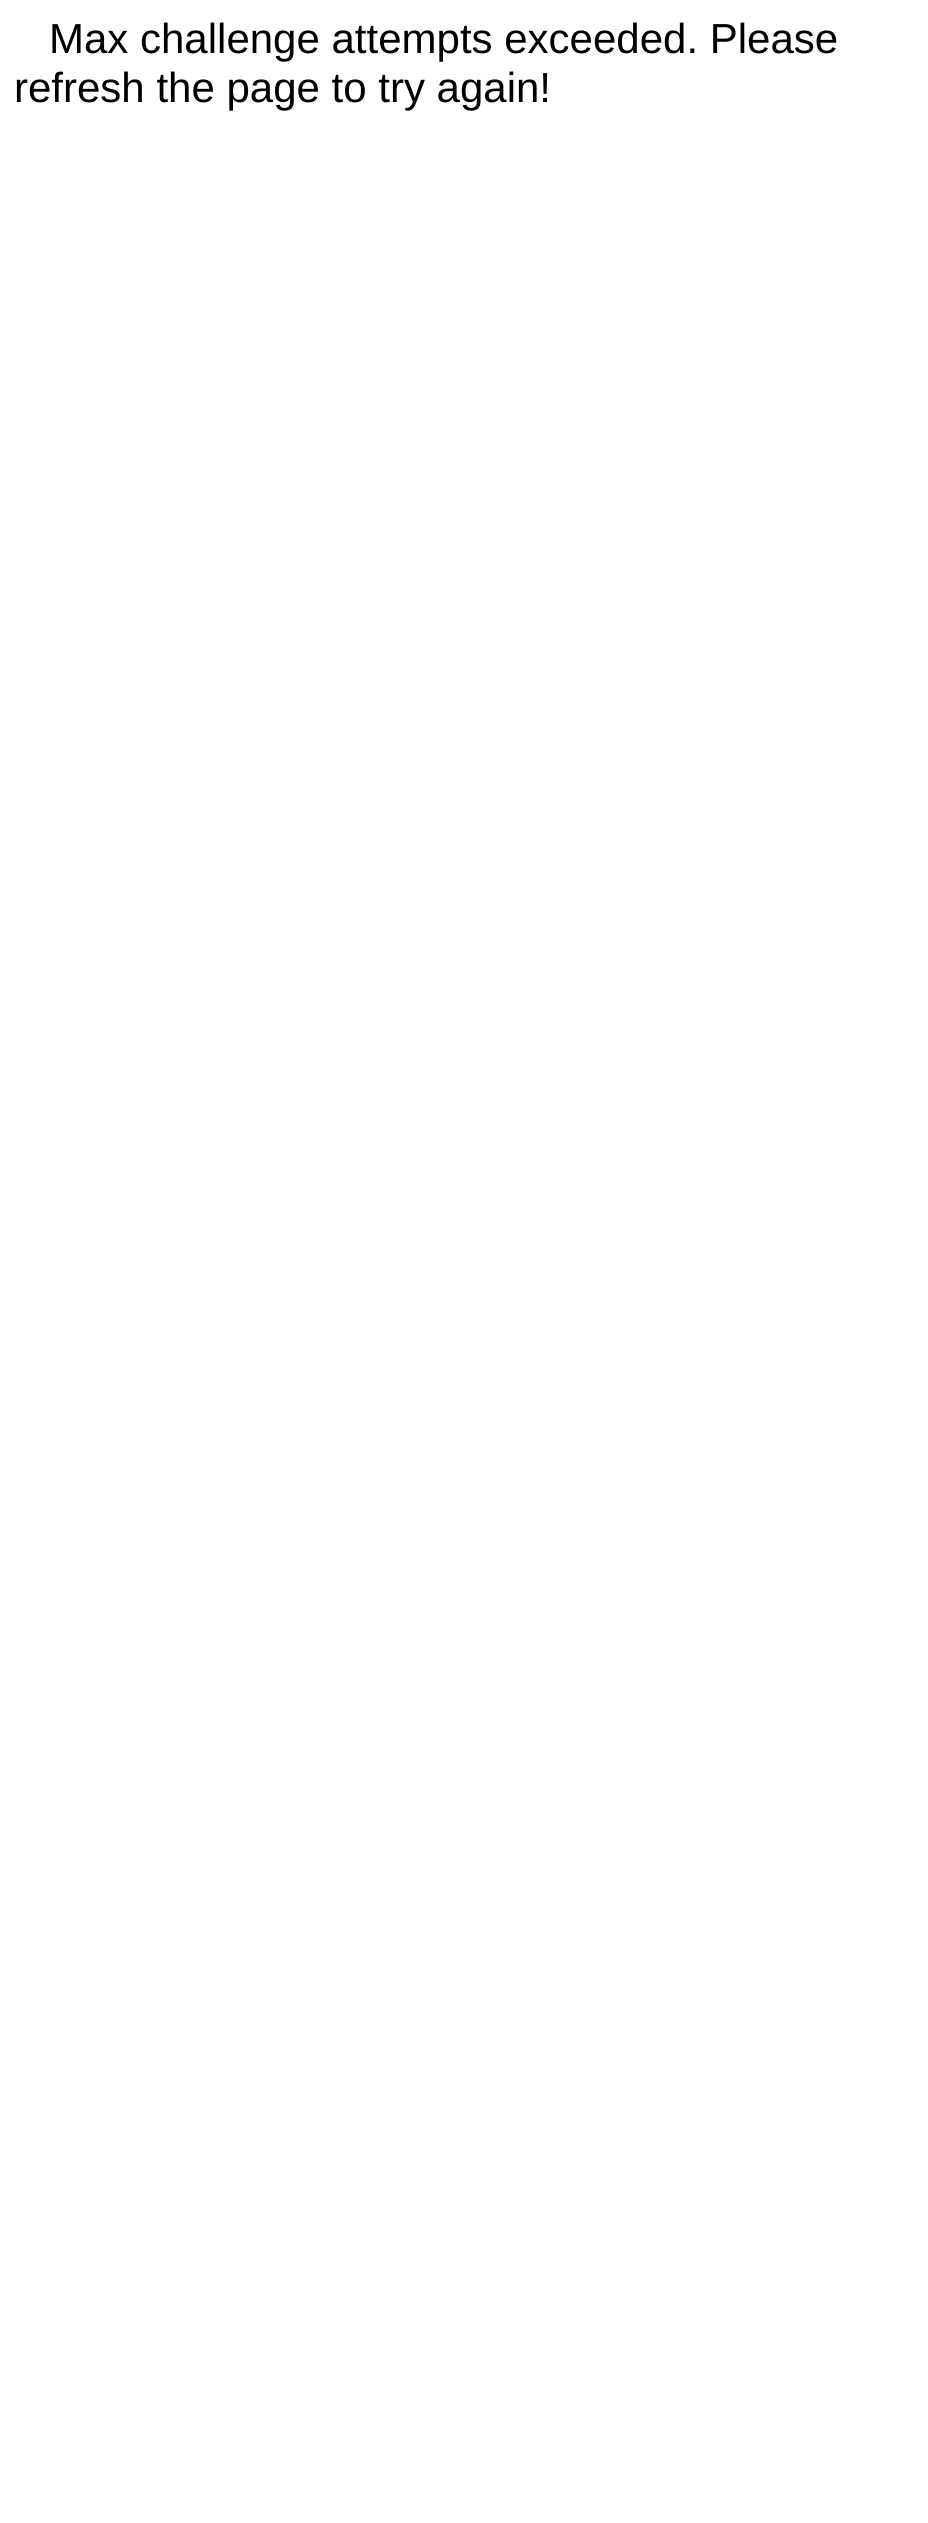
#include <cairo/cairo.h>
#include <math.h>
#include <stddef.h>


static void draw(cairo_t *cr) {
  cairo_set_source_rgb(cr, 1, 1, 1);
  cairo_paint(cr);
  cairo_select_font_face(cr, "Liberation Sans", CAIRO_FONT_SLANT_NORMAL, CAIRO_FONT_WEIGHT_NORMAL);
  cairo_set_font_size(cr, 42);
  cairo_set_source_rgb(cr, 0, 0, 0);
  cairo_move_to(cr, 49, 53);
  cairo_show_text(cr, "Max challenge attempts exceeded. Please");
  cairo_move_to(cr, 14, 102);
  cairo_show_text(cr, "refresh the page to try again!");
}

int main(void) {
  cairo_surface_t *surface = cairo_image_surface_create(CAIRO_FORMAT_RGB24, 928, 2523);
  cairo_t *cr = cairo_create(surface);
  cairo_font_options_t *options = cairo_font_options_create();
  cairo_font_options_set_hint_metrics(options, CAIRO_HINT_METRICS_OFF);
  cairo_font_options_set_hint_style(options, CAIRO_HINT_STYLE_NONE);
  cairo_set_font_options(cr, options);
  cairo_set_miter_limit(cr, 4);
  draw(cr);
  cairo_surface_write_to_png(surface, "out.png");
  cairo_font_options_destroy(options);
  cairo_destroy(cr);
  cairo_surface_destroy(surface);
  return 0;
}
